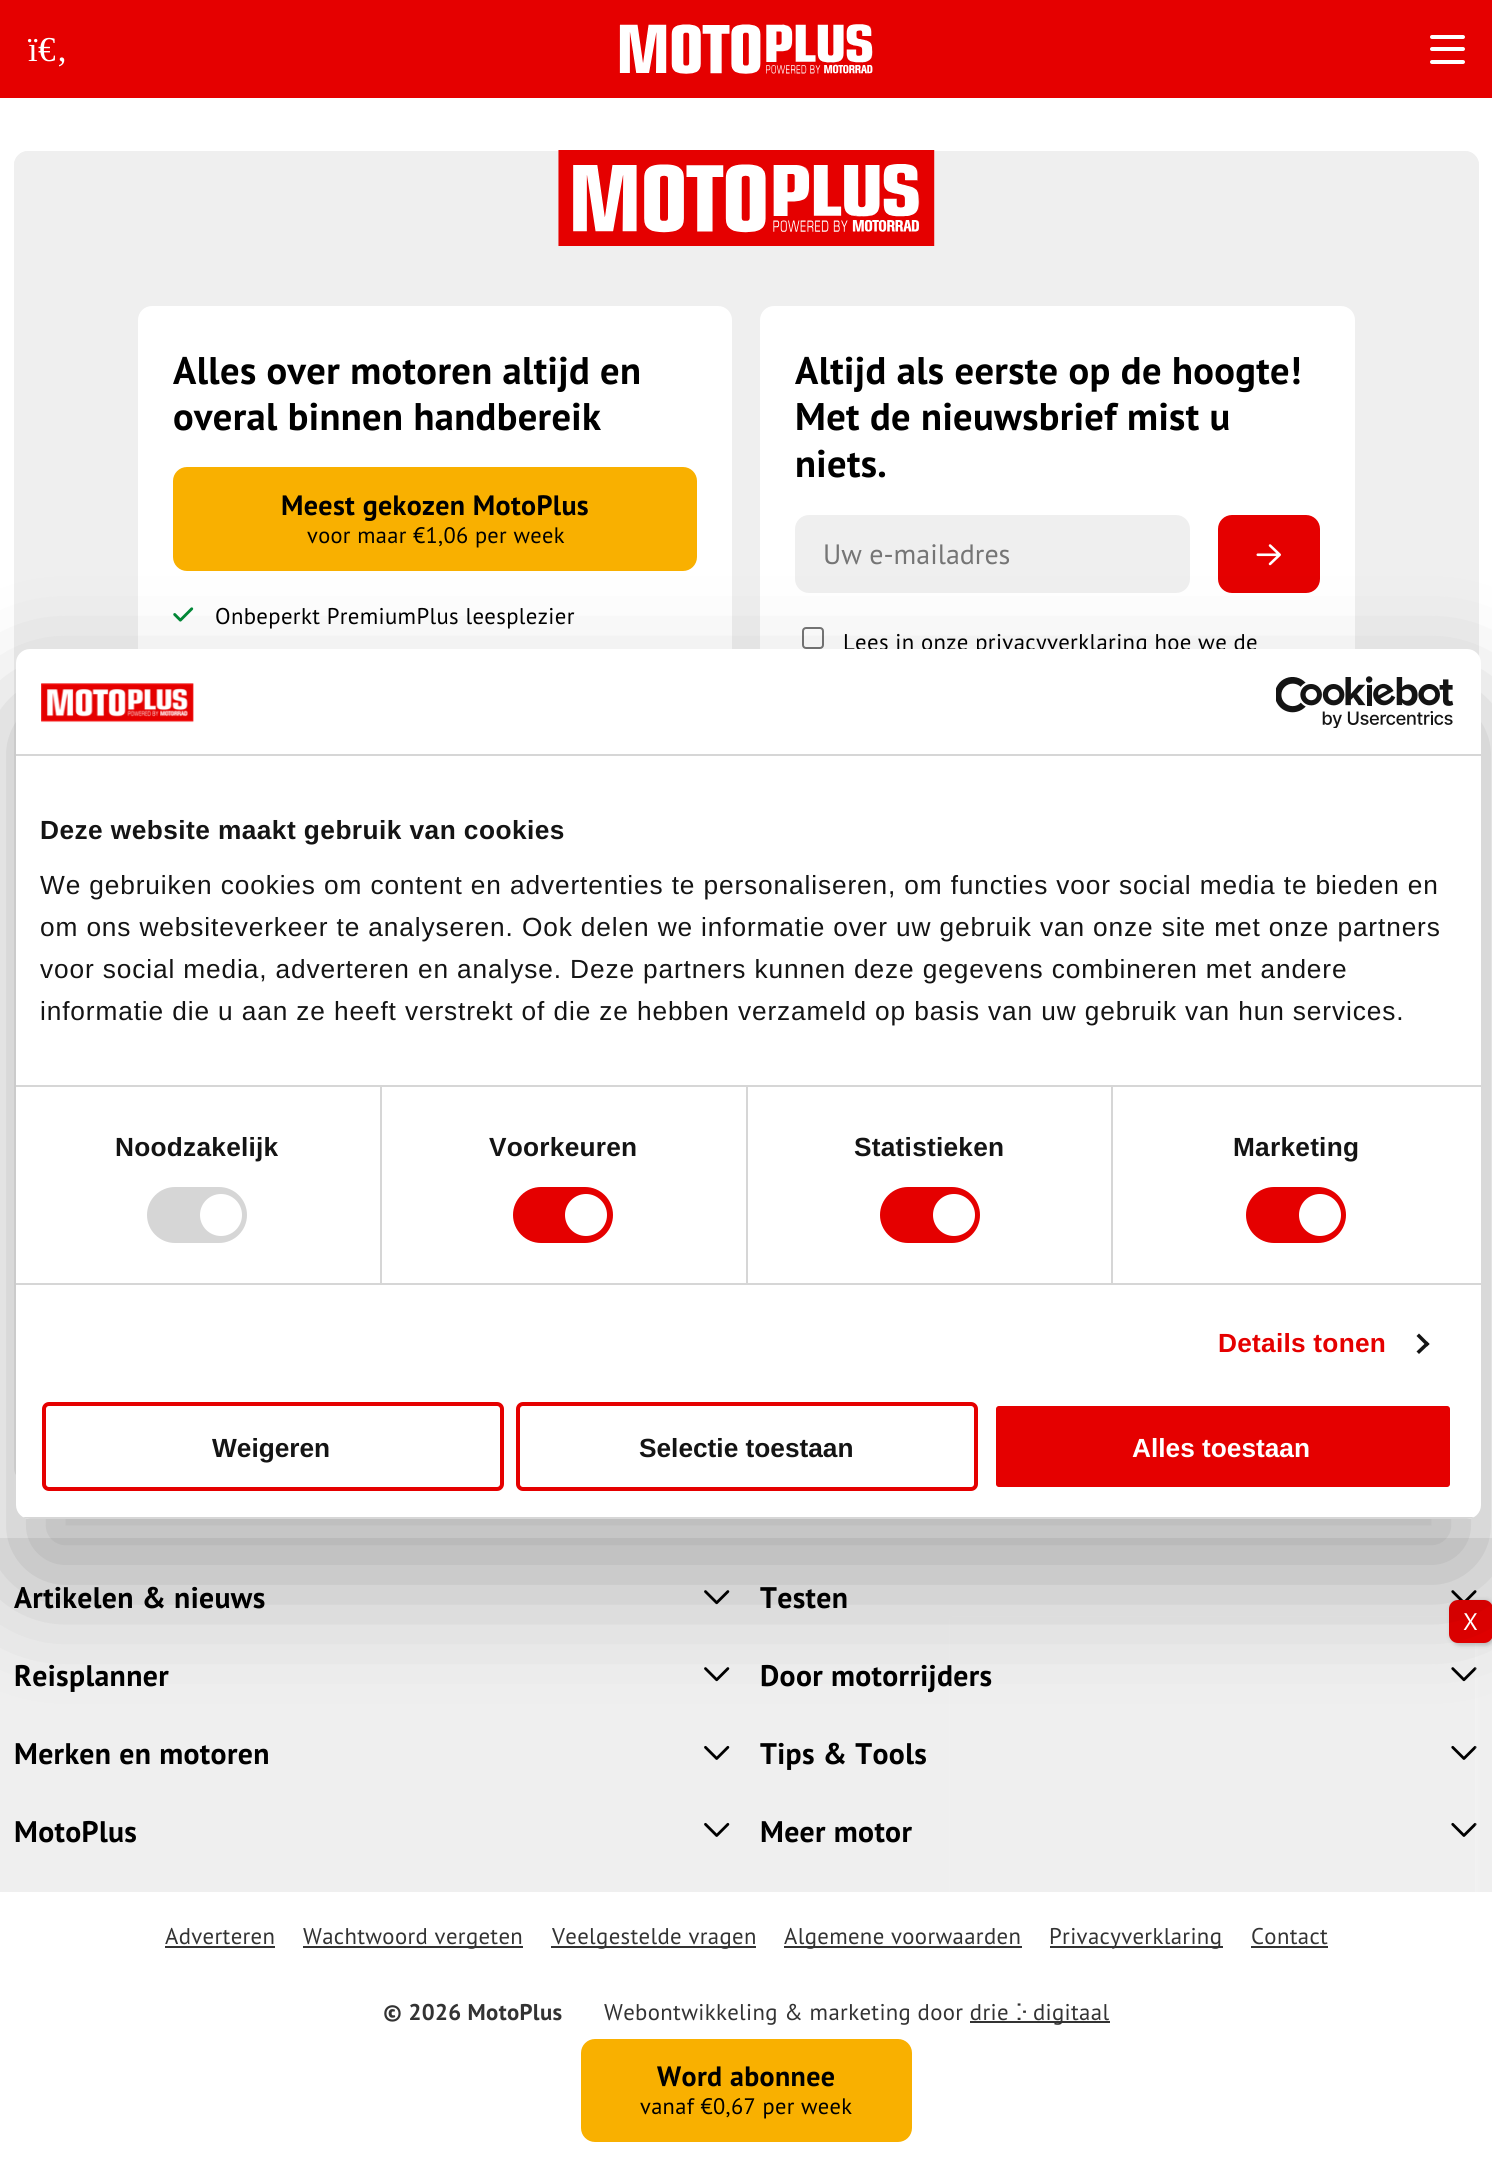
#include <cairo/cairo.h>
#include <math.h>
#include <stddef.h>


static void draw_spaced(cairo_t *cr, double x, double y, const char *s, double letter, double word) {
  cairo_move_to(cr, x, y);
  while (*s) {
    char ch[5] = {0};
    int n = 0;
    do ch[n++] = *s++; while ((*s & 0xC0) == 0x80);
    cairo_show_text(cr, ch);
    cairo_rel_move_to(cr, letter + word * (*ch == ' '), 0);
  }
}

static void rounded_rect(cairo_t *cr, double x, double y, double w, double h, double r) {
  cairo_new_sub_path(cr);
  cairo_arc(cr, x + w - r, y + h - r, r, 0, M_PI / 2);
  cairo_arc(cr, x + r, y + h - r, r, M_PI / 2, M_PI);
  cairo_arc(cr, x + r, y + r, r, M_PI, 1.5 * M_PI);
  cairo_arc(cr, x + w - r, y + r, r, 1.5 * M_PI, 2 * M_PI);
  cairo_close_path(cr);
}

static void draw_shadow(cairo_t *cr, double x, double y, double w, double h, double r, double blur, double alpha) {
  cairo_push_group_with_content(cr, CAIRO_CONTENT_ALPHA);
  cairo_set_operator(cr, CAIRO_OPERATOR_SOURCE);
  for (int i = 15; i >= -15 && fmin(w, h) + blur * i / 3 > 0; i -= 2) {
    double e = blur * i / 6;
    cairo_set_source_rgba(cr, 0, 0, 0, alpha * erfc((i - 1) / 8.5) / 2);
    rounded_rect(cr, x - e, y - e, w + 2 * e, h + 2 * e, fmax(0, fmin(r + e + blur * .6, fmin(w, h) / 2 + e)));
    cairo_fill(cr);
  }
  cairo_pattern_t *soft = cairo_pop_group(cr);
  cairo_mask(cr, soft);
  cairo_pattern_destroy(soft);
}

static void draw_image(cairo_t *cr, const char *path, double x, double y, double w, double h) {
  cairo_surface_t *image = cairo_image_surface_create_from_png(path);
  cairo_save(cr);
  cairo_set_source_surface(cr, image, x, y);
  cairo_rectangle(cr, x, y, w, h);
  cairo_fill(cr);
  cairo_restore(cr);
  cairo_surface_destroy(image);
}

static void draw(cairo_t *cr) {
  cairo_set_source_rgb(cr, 1, 1, 1);
  cairo_paint(cr);
  cairo_set_source_rgb(cr, 229 / 255.0, 0, 0);
  cairo_rectangle(cr, 0, 0, 1492, 98);
  cairo_fill(cr);
  draw_image(cr, "images/1.png", 619, 24, 254, 50);
  cairo_set_source_rgb(cr, 1, 1, 1);
  rounded_rect(cr, 1430, 35, 35, 4, 2);
  cairo_fill(cr);
  rounded_rect(cr, 1430, 47, 35, 4, 2);
  cairo_fill(cr);
  rounded_rect(cr, 1430, 60, 35, 4, 2);
  cairo_fill(cr);
  cairo_set_source_rgb(cr, 239 / 255.0, 239 / 255.0, 239 / 255.0);
  rounded_rect(cr, 14, 151, 1465, 1331, 14);
  cairo_fill(cr);
  cairo_new_path(cr);
  cairo_move_to(cr, 28, 151);
  cairo_line_to(cr, 1465, 151);
  cairo_curve_to(cr, 1472.5, 151, 1479, 157.5, 1479, 165);
  cairo_line_to(cr, 1479, 250);
  cairo_line_to(cr, 14, 250);
  cairo_line_to(cr, 14, 165);
  cairo_curve_to(cr, 14, 157.5, 20.5, 151, 28, 151);
  cairo_close_path(cr);
  cairo_fill(cr);
  draw_image(cr, "images/2.png", 558, 150, 377, 96);
  cairo_set_source_rgb(cr, 1, 1, 1);
  rounded_rect(cr, 138, 306, 594, 608, 14);
  cairo_fill(cr);
  cairo_set_source_rgb(cr, 249 / 255.0, 176 / 255.0, 0);
  rounded_rect(cr, 173, 467, 524, 104, 14);
  cairo_fill(cr);
  draw_image(cr, "images/3.png", 173, 607, 21, 15);
  cairo_set_source_rgb(cr, 1, 1, 1);
  rounded_rect(cr, 760, 306, 595, 608, 14);
  cairo_fill(cr);
  cairo_set_source_rgb(cr, 239 / 255.0, 239 / 255.0, 239 / 255.0);
  rounded_rect(cr, 795, 515, 395, 78, 14);
  cairo_fill(cr);
  cairo_set_source_rgb(cr, 229 / 255.0, 0, 0);
  rounded_rect(cr, 1218, 515, 102, 78, 14);
  cairo_fill(cr);
  draw_image(cr, "images/4.png", 1256, 544, 25, 22);
  rounded_rect(cr, 803, 628, 20, 20, 3);
  cairo_set_source_rgb(cr, 118 / 255.0, 118 / 255.0, 118 / 255.0);
  cairo_stroke(cr);
  cairo_set_source_rgb(cr, 239 / 255.0, 239 / 255.0, 239 / 255.0);
  cairo_rectangle(cr, 0, 1538, 1492, 354);
  cairo_fill(cr);
  draw_image(cr, "images/5.png", 704, 1590, 26, 15);
  draw_image(cr, "images/6.png", 1451, 1590, 26, 10);
  draw_image(cr, "images/5.png", 704, 1667, 26, 15);
  draw_image(cr, "images/7.png", 1451, 1667, 26, 15);
  draw_image(cr, "images/8.png", 704, 1745, 26, 15);
  draw_image(cr, "images/9.png", 1451, 1745, 26, 15);
  draw_image(cr, "images/8.png", 704, 1822, 26, 15);
  draw_image(cr, "images/9.png", 1451, 1822, 26, 15);
  cairo_set_source_rgb(cr, 51 / 255.0, 51 / 255.0, 51 / 255.0);
  cairo_rectangle(cr, 165, 1946, 110, 2);
  cairo_fill(cr);
  cairo_rectangle(cr, 303, 1946, 220, 2);
  cairo_fill(cr);
  cairo_rectangle(cr, 551, 1946, 205, 2);
  cairo_fill(cr);
  cairo_rectangle(cr, 784, 1946, 238, 2);
  cairo_fill(cr);
  cairo_rectangle(cr, 1050, 1946, 173, 2);
  cairo_fill(cr);
  cairo_rectangle(cr, 1251, 1946, 77, 2);
  cairo_fill(cr);
  cairo_rectangle(cr, 970, 2021, 140, 2);
  cairo_fill(cr);
  cairo_save(cr);
  cairo_set_fill_rule(cr, CAIRO_FILL_RULE_EVEN_ODD);
  cairo_new_path(cr);
  cairo_move_to(cr, 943, 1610);
  cairo_line_to(cr, 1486, 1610);
  cairo_line_to(cr, 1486, 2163);
  cairo_line_to(cr, 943, 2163);
  cairo_close_path(cr);
  cairo_move_to(cr, 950, 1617);
  cairo_line_to(cr, 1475, 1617);
  cairo_line_to(cr, 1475, 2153);
  cairo_line_to(cr, 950, 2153);
  cairo_close_path(cr);
  cairo_clip(cr);
  cairo_set_source_rgb(cr, 1, 1, 1);
  draw_shadow(cr, 952, 1619, 525, 535, 0, 2.5, 0.23);
  cairo_restore(cr);
  cairo_set_source_rgb(cr, 2 / 255.0, 2 / 255.0, 2 / 255.0);
  draw_shadow(cr, 1451, 1601, 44, 44, 9, 2.5, 0.23);
  cairo_set_source_rgb(cr, 229 / 255.0, 0, 0);
  rounded_rect(cr, 1449, 1600, 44, 43, 9);
  cairo_fill(cr);
  cairo_set_source_rgb(cr, 0, 0, 0);
  draw_shadow(cr, 16, 705, 1465, 870, 14, 59.5, 0.3);
  cairo_set_source_rgb(cr, 249 / 255.0, 176 / 255.0, 0);
  rounded_rect(cr, 581, 2039, 331, 103, 14);
  cairo_fill(cr);
  cairo_select_font_face(cr, "Liberation Serif", CAIRO_FONT_SLANT_NORMAL, CAIRO_FONT_WEIGHT_NORMAL);
  cairo_set_font_size(cr, 35);
  cairo_set_source_rgb(cr, 1, 1, 1);
  draw_spaced(cr, 28, 61, "ï€‚", 0.35, 0);
  cairo_select_font_face(cr, "PT Sans", CAIRO_FONT_SLANT_NORMAL, CAIRO_FONT_WEIGHT_BOLD);
  cairo_set_font_size(cr, 38.5);
  cairo_set_source_rgb(cr, 0, 0, 0);
  draw_spaced(cr, 173, 384, "Alles over motoren altijd en", 0.35, 0);
  draw_spaced(cr, 173, 430, "overal binnen handbereik", 0.35, 0);
  cairo_set_font_size(cr, 28);
  draw_spaced(cr, 281, 515, "Meest gekozen MotoPlus", 0.35, 0);
  cairo_select_font_face(cr, "PT Sans", CAIRO_FONT_SLANT_NORMAL, CAIRO_FONT_WEIGHT_NORMAL);
  cairo_set_font_size(cr, 22.4);
  draw_spaced(cr, 307, 543, "voor maar €1,06 per week", 0.35, 0);
  cairo_set_font_size(cr, 22.75);
  draw_spaced(cr, 215, 624, "Onbeperkt PremiumPlus leesplezier", 0.35, 0);
  cairo_select_font_face(cr, "PT Sans", CAIRO_FONT_SLANT_NORMAL, CAIRO_FONT_WEIGHT_BOLD);
  cairo_set_font_size(cr, 38.5);
  draw_spaced(cr, 795, 384, "Altijd als eerste op de hoogte!", 0.35, 0);
  draw_spaced(cr, 795, 430, "Met de nieuwsbrief mist u", 0.35, 0);
  draw_spaced(cr, 795, 477, "niets.", 0.35, 0);
  cairo_select_font_face(cr, "PT Sans", CAIRO_FONT_SLANT_NORMAL, CAIRO_FONT_WEIGHT_NORMAL);
  cairo_set_font_size(cr, 28);
  cairo_set_source_rgb(cr, 117 / 255.0, 117 / 255.0, 117 / 255.0);
  cairo_move_to(cr, 823, 564);
  cairo_show_text(cr, "Uw e-mailadres");
  cairo_set_font_size(cr, 22.75);
  cairo_set_source_rgb(cr, 0, 0, 0);
  draw_spaced(cr, 843, 650, "Lees in onze privacyverklaring hoe we de", 0.35, 0);
  cairo_select_font_face(cr, "PT Sans", CAIRO_FONT_SLANT_NORMAL, CAIRO_FONT_WEIGHT_BOLD);
  cairo_set_font_size(cr, 29.75);
  draw_spaced(cr, 14, 1608, "Artikelen & nieuws", 0.35, 0);
  draw_spaced(cr, 760, 1608, "Testen", 0.35, 0);
  draw_spaced(cr, 14, 1686, "Reisplanner", 0.35, 0);
  draw_spaced(cr, 760, 1686, "Door motorrijders", 0.35, 0);
  draw_spaced(cr, 14, 1764, "Merken en motoren", 0.35, 0);
  draw_spaced(cr, 760, 1764, "Tips & Tools", 0.35, 0);
  draw_spaced(cr, 14, 1842, "MotoPlus", 0.35, 0);
  draw_spaced(cr, 760, 1842, "Meer motor", 0.35, 0);
  cairo_select_font_face(cr, "PT Sans", CAIRO_FONT_SLANT_NORMAL, CAIRO_FONT_WEIGHT_NORMAL);
  cairo_set_font_size(cr, 22.75);
  cairo_set_source_rgb(cr, 51 / 255.0, 51 / 255.0, 51 / 255.0);
  draw_spaced(cr, 165, 1944, "Adverteren", 0.35, 0);
  draw_spaced(cr, 303, 1944, "Wachtwoord vergeten", 0.35, 0);
  draw_spaced(cr, 552, 1944, "Veelgestelde vragen", 0.35, 0);
  draw_spaced(cr, 784, 1944, "Algemene voorwaarden", 0.35, 0);
  draw_spaced(cr, 1049, 1944, "Privacyverklaring", 0.35, 0);
  draw_spaced(cr, 1251, 1944, "Contact", 0.35, 0);
  cairo_select_font_face(cr, "PT Sans", CAIRO_FONT_SLANT_NORMAL, CAIRO_FONT_WEIGHT_BOLD);
  draw_spaced(cr, 383, 2020, "© 2026 MotoPlus", 0.35, 0);
  cairo_select_font_face(cr, "PT Sans", CAIRO_FONT_SLANT_NORMAL, CAIRO_FONT_WEIGHT_NORMAL);
  draw_spaced(cr, 604, 2020, "Webontwikkeling & marketing door drie", 0.35, 0);
  cairo_select_font_face(cr, "DejaVu Sans", CAIRO_FONT_SLANT_NORMAL, CAIRO_FONT_WEIGHT_NORMAL);
  draw_spaced(cr, 1016, 2020, "ⴾ", 0.35, 0);
  cairo_select_font_face(cr, "PT Sans", CAIRO_FONT_SLANT_NORMAL, CAIRO_FONT_WEIGHT_NORMAL);
  draw_spaced(cr, 1033, 2020, "digitaal", 0.35, 0);
  cairo_set_source_rgb(cr, 1, 1, 1);
  rounded_rect(cr, 16, 649, 1465, 870, 14);
  cairo_fill(cr);
  cairo_set_source_rgb(cr, 214 / 255.0, 214 / 255.0, 214 / 255.0);
  cairo_rectangle(cr, 16, 754, 1465, 2);
  cairo_fill(cr);
  draw_image(cr, "images/10.png", 41, 683, 153, 40);
  draw_image(cr, "images/11.png", 1276, 676, 178, 52);
  cairo_rectangle(cr, 16, 1085, 1465, 2);
  cairo_fill(cr);
  cairo_select_font_face(cr, "Liberation Sans", CAIRO_FONT_SLANT_NORMAL, CAIRO_FONT_WEIGHT_BOLD);
  cairo_set_font_size(cr, 26.25);
  cairo_set_source_rgb(cr, 20 / 255.0, 20 / 255.0, 20 / 255.0);
  draw_spaced(cr, 40, 839, "Deze website maakt gebruik van cookies", 0.45, 0);
  cairo_select_font_face(cr, "Liberation Sans", CAIRO_FONT_SLANT_NORMAL, CAIRO_FONT_WEIGHT_NORMAL);
  draw_spaced(cr, 40, 894, "We gebruiken cookies om content en advertenties te personaliseren, om functies voor social media te bieden en", 0.88, 0);
  draw_spaced(cr, 40, 936, "om ons websiteverkeer te analyseren. Ook delen we informatie over uw gebruik van onze site met onze partners", 0.88, 0);
  draw_spaced(cr, 40, 978, "voor social media, adverteren en analyse. Deze partners kunnen deze gegevens combineren met andere", 0.88, 0);
  draw_spaced(cr, 40, 1020, "informatie die u aan ze heeft verstrekt of die ze hebben verzameld op basis van uw gebruik van hun services.", 0.88, 0);
  cairo_set_source_rgb(cr, 214 / 255.0, 214 / 255.0, 214 / 255.0);
  cairo_rectangle(cr, 16, 1283, 1465, 2);
  cairo_fill(cr);
  cairo_rectangle(cr, 380, 1087, 2, 196);
  cairo_fill(cr);
  cairo_select_font_face(cr, "Liberation Sans", CAIRO_FONT_SLANT_NORMAL, CAIRO_FONT_WEIGHT_BOLD);
  cairo_set_source_rgb(cr, 20 / 255.0, 20 / 255.0, 20 / 255.0);
  draw_spaced(cr, 115, 1156, "Noodzakelijk", 0.25, 0);
  cairo_set_source_rgb(cr, 214 / 255.0, 214 / 255.0, 214 / 255.0);
  rounded_rect(cr, 147, 1187, 100, 56, 28);
  cairo_fill(cr);
  cairo_set_source_rgb(cr, 1, 1, 1);
  cairo_arc(cr, 221, 1215, 21, 0, 2 * M_PI);
  cairo_fill(cr);
  cairo_set_source_rgb(cr, 214 / 255.0, 214 / 255.0, 214 / 255.0);
  cairo_rectangle(cr, 746, 1087, 2, 196);
  cairo_fill(cr);
  cairo_set_source_rgb(cr, 20 / 255.0, 20 / 255.0, 20 / 255.0);
  draw_spaced(cr, 489, 1156, "Voorkeuren", 0.25, 0);
  cairo_set_source_rgb(cr, 229 / 255.0, 0, 0);
  rounded_rect(cr, 513, 1187, 100, 56, 28);
  cairo_fill(cr);
  cairo_set_source_rgb(cr, 1, 1, 1);
  cairo_arc(cr, 586, 1215, 21, 0, 2 * M_PI);
  cairo_fill(cr);
  cairo_set_source_rgb(cr, 214 / 255.0, 214 / 255.0, 214 / 255.0);
  cairo_rectangle(cr, 1111, 1087, 2, 196);
  cairo_fill(cr);
  cairo_set_source_rgb(cr, 20 / 255.0, 20 / 255.0, 20 / 255.0);
  draw_spaced(cr, 854, 1156, "Statistieken", 0.25, 0);
  cairo_set_source_rgb(cr, 229 / 255.0, 0, 0);
  rounded_rect(cr, 880, 1187, 100, 56, 28);
  cairo_fill(cr);
  cairo_set_source_rgb(cr, 1, 1, 1);
  cairo_arc(cr, 954, 1215, 21, 0, 2 * M_PI);
  cairo_fill(cr);
  cairo_set_source_rgb(cr, 20 / 255.0, 20 / 255.0, 20 / 255.0);
  draw_spaced(cr, 1233, 1156, "Marketing", 0.25, 0);
  cairo_set_source_rgb(cr, 229 / 255.0, 0, 0);
  rounded_rect(cr, 1246, 1187, 100, 56, 28);
  cairo_fill(cr);
  cairo_set_source_rgb(cr, 1, 1, 1);
  cairo_arc(cr, 1320, 1215, 21, 0, 2 * M_PI);
  cairo_fill(cr);
  cairo_set_source_rgb(cr, 229 / 255.0, 0, 0);
  draw_spaced(cr, 1218, 1352, "Details tonen", 0.25, 0);
  cairo_set_source_rgb(cr, 20 / 255.0, 20 / 255.0, 20 / 255.0);
  cairo_new_path(cr);
  cairo_move_to(cr, 1419, 1333.5);
  cairo_line_to(cr, 1429.5, 1344);
  cairo_line_to(cr, 1427, 1346.5);
  cairo_line_to(cr, 1416.5, 1336);
  cairo_close_path(cr);
  cairo_fill(cr);
  cairo_new_path(cr);
  cairo_move_to(cr, 1427, 1341.5);
  cairo_line_to(cr, 1429.5, 1344);
  cairo_line_to(cr, 1419, 1354);
  cairo_line_to(cr, 1416.5, 1351.5);
  cairo_close_path(cr);
  cairo_fill(cr);
  cairo_save(cr);
  rounded_rect(cr, 16, 649, 1465, 870, 14);
  cairo_clip(cr);
  cairo_set_source_rgb(cr, 214 / 255.0, 214 / 255.0, 214 / 255.0);
  cairo_rectangle(cr, 16, 1517, 1465, 2);
  cairo_fill(cr);
  cairo_restore(cr);
  rounded_rect(cr, 44, 1404, 458, 85, 5);
  cairo_set_source_rgb(cr, 229 / 255.0, 0, 0);
  cairo_set_line_width(cr, 4);
  cairo_stroke(cr);
  cairo_set_source_rgb(cr, 20 / 255.0, 20 / 255.0, 20 / 255.0);
  cairo_move_to(cr, 212, 1457);
  cairo_show_text(cr, "Weigeren");
  rounded_rect(cr, 518, 1404, 458, 85, 5);
  cairo_set_source_rgb(cr, 229 / 255.0, 0, 0);
  cairo_stroke(cr);
  cairo_set_source_rgb(cr, 20 / 255.0, 20 / 255.0, 20 / 255.0);
  cairo_move_to(cr, 639, 1457);
  cairo_show_text(cr, "Selectie toestaan");
  cairo_set_source_rgb(cr, 229 / 255.0, 0, 0);
  rounded_rect(cr, 994, 1404, 458, 85, 5);
  cairo_fill_preserve(cr);
  cairo_set_source_rgb(cr, 1, 1, 1);
  cairo_stroke(cr);
  cairo_move_to(cr, 1132, 1457);
  cairo_show_text(cr, "Alles toestaan");
  cairo_select_font_face(cr, "PT Sans", CAIRO_FONT_SLANT_NORMAL, CAIRO_FONT_WEIGHT_NORMAL);
  cairo_set_font_size(cr, 24);
  cairo_move_to(cr, 1463, 1630);
  cairo_show_text(cr, "X");
  cairo_select_font_face(cr, "PT Sans", CAIRO_FONT_SLANT_NORMAL, CAIRO_FONT_WEIGHT_BOLD);
  cairo_set_font_size(cr, 28);
  cairo_set_source_rgb(cr, 0, 0, 0);
  draw_spaced(cr, 657, 2086, "Word abonnee", 0.35, 0);
  cairo_select_font_face(cr, "PT Sans", CAIRO_FONT_SLANT_NORMAL, CAIRO_FONT_WEIGHT_NORMAL);
  cairo_set_font_size(cr, 22.4);
  draw_spaced(cr, 640, 2114, "vanaf €0,67 per week", 0.35, 0);
}

int main(void) {
  cairo_surface_t *surface = cairo_image_surface_create(CAIRO_FORMAT_RGB24, 1492, 2169);
  cairo_t *cr = cairo_create(surface);
  cairo_font_options_t *options = cairo_font_options_create();
  cairo_font_options_set_hint_metrics(options, CAIRO_HINT_METRICS_OFF);
  cairo_font_options_set_hint_style(options, CAIRO_HINT_STYLE_NONE);
  cairo_set_font_options(cr, options);
  cairo_set_miter_limit(cr, 4);
  draw(cr);
  cairo_surface_write_to_png(surface, "out.png");
  cairo_font_options_destroy(options);
  cairo_destroy(cr);
  cairo_surface_destroy(surface);
  return 0;
}
